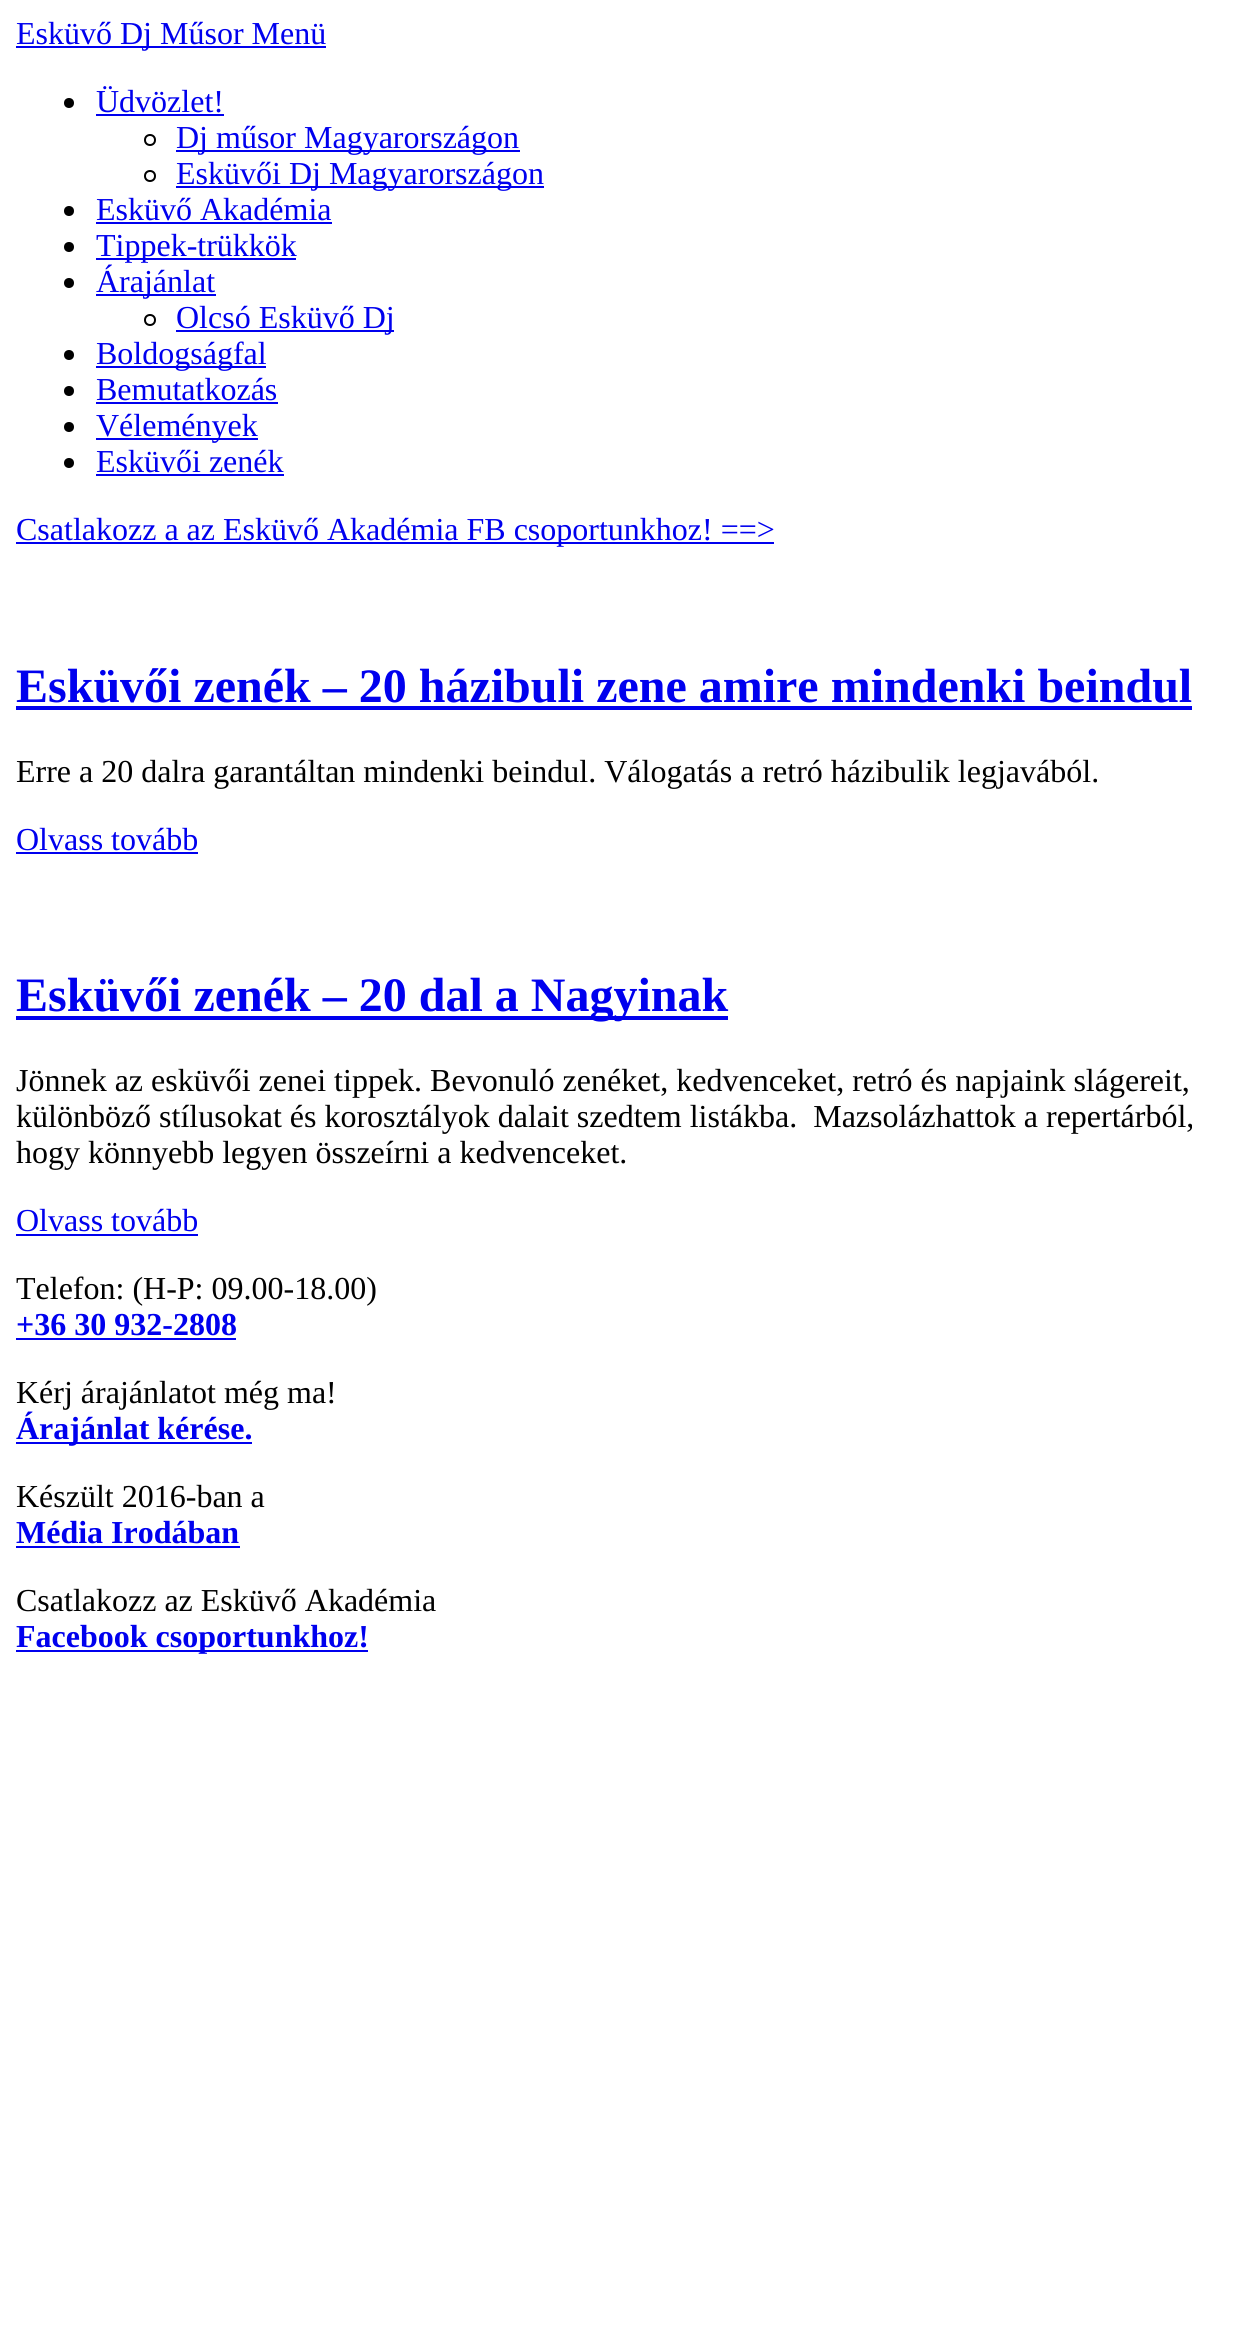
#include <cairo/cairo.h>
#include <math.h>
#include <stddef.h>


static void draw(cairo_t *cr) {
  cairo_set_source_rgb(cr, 1, 1, 1);
  cairo_paint(cr);
  cairo_set_source_rgb(cr, 0, 0, 238 / 255.0);
  cairo_rectangle(cr, 16, 46, 310, 2);
  cairo_fill(cr);
  cairo_set_source_rgb(cr, 0, 0, 0);
  cairo_arc(cr, 69, 103, 5, 0, 2 * M_PI);
  cairo_fill(cr);
  cairo_set_source_rgb(cr, 0, 0, 238 / 255.0);
  cairo_rectangle(cr, 96, 114, 128, 2);
  cairo_fill(cr);
  cairo_arc(cr, 150, 140, 5, 0, 2 * M_PI);
  cairo_set_source_rgb(cr, 0, 0, 0);
  cairo_stroke(cr);
  cairo_set_source_rgb(cr, 0, 0, 238 / 255.0);
  cairo_rectangle(cr, 176, 150, 344, 2);
  cairo_fill(cr);
  cairo_arc(cr, 150, 176, 5, 0, 2 * M_PI);
  cairo_set_source_rgb(cr, 0, 0, 0);
  cairo_stroke(cr);
  cairo_set_source_rgb(cr, 0, 0, 238 / 255.0);
  cairo_rectangle(cr, 176, 186, 368, 2);
  cairo_fill(cr);
  cairo_set_source_rgb(cr, 0, 0, 0);
  cairo_arc(cr, 69, 211, 5, 0, 2 * M_PI);
  cairo_fill(cr);
  cairo_set_source_rgb(cr, 0, 0, 238 / 255.0);
  cairo_rectangle(cr, 96, 222, 236, 2);
  cairo_fill(cr);
  cairo_set_source_rgb(cr, 0, 0, 0);
  cairo_arc(cr, 69, 247, 5, 0, 2 * M_PI);
  cairo_fill(cr);
  cairo_set_source_rgb(cr, 0, 0, 238 / 255.0);
  cairo_rectangle(cr, 96, 258, 200, 2);
  cairo_fill(cr);
  cairo_set_source_rgb(cr, 0, 0, 0);
  cairo_arc(cr, 69, 283, 5, 0, 2 * M_PI);
  cairo_fill(cr);
  cairo_set_source_rgb(cr, 0, 0, 238 / 255.0);
  cairo_rectangle(cr, 96, 294, 120, 2);
  cairo_fill(cr);
  cairo_arc(cr, 150, 320, 5, 0, 2 * M_PI);
  cairo_set_source_rgb(cr, 0, 0, 0);
  cairo_stroke(cr);
  cairo_set_source_rgb(cr, 0, 0, 238 / 255.0);
  cairo_rectangle(cr, 176, 330, 218, 2);
  cairo_fill(cr);
  cairo_set_source_rgb(cr, 0, 0, 0);
  cairo_arc(cr, 69, 355, 5, 0, 2 * M_PI);
  cairo_fill(cr);
  cairo_set_source_rgb(cr, 0, 0, 238 / 255.0);
  cairo_rectangle(cr, 96, 366, 170, 2);
  cairo_fill(cr);
  cairo_set_source_rgb(cr, 0, 0, 0);
  cairo_arc(cr, 69, 391, 5, 0, 2 * M_PI);
  cairo_fill(cr);
  cairo_set_source_rgb(cr, 0, 0, 238 / 255.0);
  cairo_rectangle(cr, 96, 402, 182, 2);
  cairo_fill(cr);
  cairo_set_source_rgb(cr, 0, 0, 0);
  cairo_arc(cr, 69, 427, 5, 0, 2 * M_PI);
  cairo_fill(cr);
  cairo_set_source_rgb(cr, 0, 0, 238 / 255.0);
  cairo_rectangle(cr, 96, 438, 162, 2);
  cairo_fill(cr);
  cairo_set_source_rgb(cr, 0, 0, 0);
  cairo_arc(cr, 69, 463, 5, 0, 2 * M_PI);
  cairo_fill(cr);
  cairo_set_source_rgb(cr, 0, 0, 238 / 255.0);
  cairo_rectangle(cr, 96, 474, 188, 2);
  cairo_fill(cr);
  cairo_rectangle(cr, 16, 542, 758, 2);
  cairo_fill(cr);
  cairo_rectangle(cr, 16, 706, 1176, 4);
  cairo_fill(cr);
  cairo_rectangle(cr, 16, 852, 182, 2);
  cairo_fill(cr);
  cairo_rectangle(cr, 16, 1016, 712, 4);
  cairo_fill(cr);
  cairo_rectangle(cr, 16, 1234, 182, 2);
  cairo_fill(cr);
  cairo_rectangle(cr, 16, 1338, 220, 2);
  cairo_fill(cr);
  cairo_rectangle(cr, 16, 1442, 236, 2);
  cairo_fill(cr);
  cairo_rectangle(cr, 16, 1546, 224, 2);
  cairo_fill(cr);
  cairo_rectangle(cr, 16, 1650, 352, 2);
  cairo_fill(cr);
  cairo_select_font_face(cr, "Liberation Serif", CAIRO_FONT_SLANT_NORMAL, CAIRO_FONT_WEIGHT_NORMAL);
  cairo_set_font_size(cr, 32);
  cairo_move_to(cr, 16, 44);
  cairo_show_text(cr, "Esküvő Dj Műsor Menü");
  cairo_move_to(cr, 96, 112);
  cairo_show_text(cr, "Üdvözlet!");
  cairo_move_to(cr, 176, 148);
  cairo_show_text(cr, "Dj műsor Magyarországon");
  cairo_move_to(cr, 176, 184);
  cairo_show_text(cr, "Esküvői Dj Magyarországon");
  cairo_move_to(cr, 96, 220);
  cairo_show_text(cr, "Esküvő Akadémia");
  cairo_move_to(cr, 96, 256);
  cairo_show_text(cr, "Tippek-trükkök");
  cairo_move_to(cr, 96, 292);
  cairo_show_text(cr, "Árajánlat");
  cairo_move_to(cr, 176, 328);
  cairo_show_text(cr, "Olcsó Esküvő Dj");
  cairo_move_to(cr, 96, 364);
  cairo_show_text(cr, "Boldogságfal");
  cairo_move_to(cr, 96, 400);
  cairo_show_text(cr, "Bemutatkozás");
  cairo_move_to(cr, 96, 436);
  cairo_show_text(cr, "Vélemények");
  cairo_move_to(cr, 96, 472);
  cairo_show_text(cr, "Esküvői zenék");
  cairo_move_to(cr, 16, 540);
  cairo_show_text(cr, "Csatlakozz a az Esküvő Akadémia FB csoportunkhoz! ==>");
  cairo_select_font_face(cr, "Liberation Serif", CAIRO_FONT_SLANT_NORMAL, CAIRO_FONT_WEIGHT_BOLD);
  cairo_set_font_size(cr, 48);
  cairo_move_to(cr, 16, 702);
  cairo_show_text(cr, "Esküvői zenék – 20 házibuli zene amire mindenki beindul");
  cairo_select_font_face(cr, "Liberation Serif", CAIRO_FONT_SLANT_NORMAL, CAIRO_FONT_WEIGHT_NORMAL);
  cairo_set_font_size(cr, 32);
  cairo_set_source_rgb(cr, 0, 0, 0);
  cairo_move_to(cr, 16, 782);
  cairo_show_text(cr, "Erre a 20 dalra garantáltan mindenki beindul. Válogatás a retró házibulik legjavából.");
  cairo_set_source_rgb(cr, 0, 0, 238 / 255.0);
  cairo_move_to(cr, 16, 850);
  cairo_show_text(cr, "Olvass tovább");
  cairo_select_font_face(cr, "Liberation Serif", CAIRO_FONT_SLANT_NORMAL, CAIRO_FONT_WEIGHT_BOLD);
  cairo_set_font_size(cr, 48);
  cairo_move_to(cr, 16, 1011);
  cairo_show_text(cr, "Esküvői zenék – 20 dal a Nagyinak");
  cairo_select_font_face(cr, "Liberation Serif", CAIRO_FONT_SLANT_NORMAL, CAIRO_FONT_WEIGHT_NORMAL);
  cairo_set_font_size(cr, 32);
  cairo_set_source_rgb(cr, 0, 0, 0);
  cairo_move_to(cr, 16, 1091);
  cairo_show_text(cr, "Jönnek az esküvői zenei tippek. Bevonuló zenéket, kedvenceket, retró és napjaink slágereit,");
  cairo_move_to(cr, 16, 1127);
  cairo_show_text(cr, "különböző stílusokat és korosztályok dalait szedtem listákba.  Mazsolázhattok a repertárból,");
  cairo_move_to(cr, 16, 1163);
  cairo_show_text(cr, "hogy könnyebb legyen összeírni a kedvenceket.");
  cairo_set_source_rgb(cr, 0, 0, 238 / 255.0);
  cairo_move_to(cr, 16, 1231);
  cairo_show_text(cr, "Olvass tovább");
  cairo_set_source_rgb(cr, 0, 0, 0);
  cairo_move_to(cr, 16, 1299);
  cairo_show_text(cr, "Telefon: (H-P: 09.00-18.00)");
  cairo_select_font_face(cr, "Liberation Serif", CAIRO_FONT_SLANT_NORMAL, CAIRO_FONT_WEIGHT_BOLD);
  cairo_set_source_rgb(cr, 0, 0, 238 / 255.0);
  cairo_move_to(cr, 16, 1335);
  cairo_show_text(cr, "+36 30 932-2808");
  cairo_select_font_face(cr, "Liberation Serif", CAIRO_FONT_SLANT_NORMAL, CAIRO_FONT_WEIGHT_NORMAL);
  cairo_set_source_rgb(cr, 0, 0, 0);
  cairo_move_to(cr, 16, 1403);
  cairo_show_text(cr, "Kérj árajánlatot még ma!");
  cairo_select_font_face(cr, "Liberation Serif", CAIRO_FONT_SLANT_NORMAL, CAIRO_FONT_WEIGHT_BOLD);
  cairo_set_source_rgb(cr, 0, 0, 238 / 255.0);
  cairo_move_to(cr, 16, 1439);
  cairo_show_text(cr, "Árajánlat kérése.");
  cairo_select_font_face(cr, "Liberation Serif", CAIRO_FONT_SLANT_NORMAL, CAIRO_FONT_WEIGHT_NORMAL);
  cairo_set_source_rgb(cr, 0, 0, 0);
  cairo_move_to(cr, 16, 1507);
  cairo_show_text(cr, "Készült 2016-ban a");
  cairo_select_font_face(cr, "Liberation Serif", CAIRO_FONT_SLANT_NORMAL, CAIRO_FONT_WEIGHT_BOLD);
  cairo_set_source_rgb(cr, 0, 0, 238 / 255.0);
  cairo_move_to(cr, 16, 1543);
  cairo_show_text(cr, "Média Irodában");
  cairo_select_font_face(cr, "Liberation Serif", CAIRO_FONT_SLANT_NORMAL, CAIRO_FONT_WEIGHT_NORMAL);
  cairo_set_source_rgb(cr, 0, 0, 0);
  cairo_move_to(cr, 16, 1611);
  cairo_show_text(cr, "Csatlakozz az Esküvő Akadémia");
  cairo_select_font_face(cr, "Liberation Serif", CAIRO_FONT_SLANT_NORMAL, CAIRO_FONT_WEIGHT_BOLD);
  cairo_set_source_rgb(cr, 0, 0, 238 / 255.0);
  cairo_move_to(cr, 16, 1647);
  cairo_show_text(cr, "Facebook csoportunkhoz!");
}

int main(void) {
  cairo_surface_t *surface = cairo_image_surface_create(CAIRO_FORMAT_RGB24, 1249, 2348);
  cairo_t *cr = cairo_create(surface);
  cairo_font_options_t *options = cairo_font_options_create();
  cairo_font_options_set_hint_metrics(options, CAIRO_HINT_METRICS_OFF);
  cairo_font_options_set_hint_style(options, CAIRO_HINT_STYLE_NONE);
  cairo_set_font_options(cr, options);
  cairo_set_miter_limit(cr, 4);
  draw(cr);
  cairo_surface_write_to_png(surface, "out.png");
  cairo_font_options_destroy(options);
  cairo_destroy(cr);
  cairo_surface_destroy(surface);
  return 0;
}
